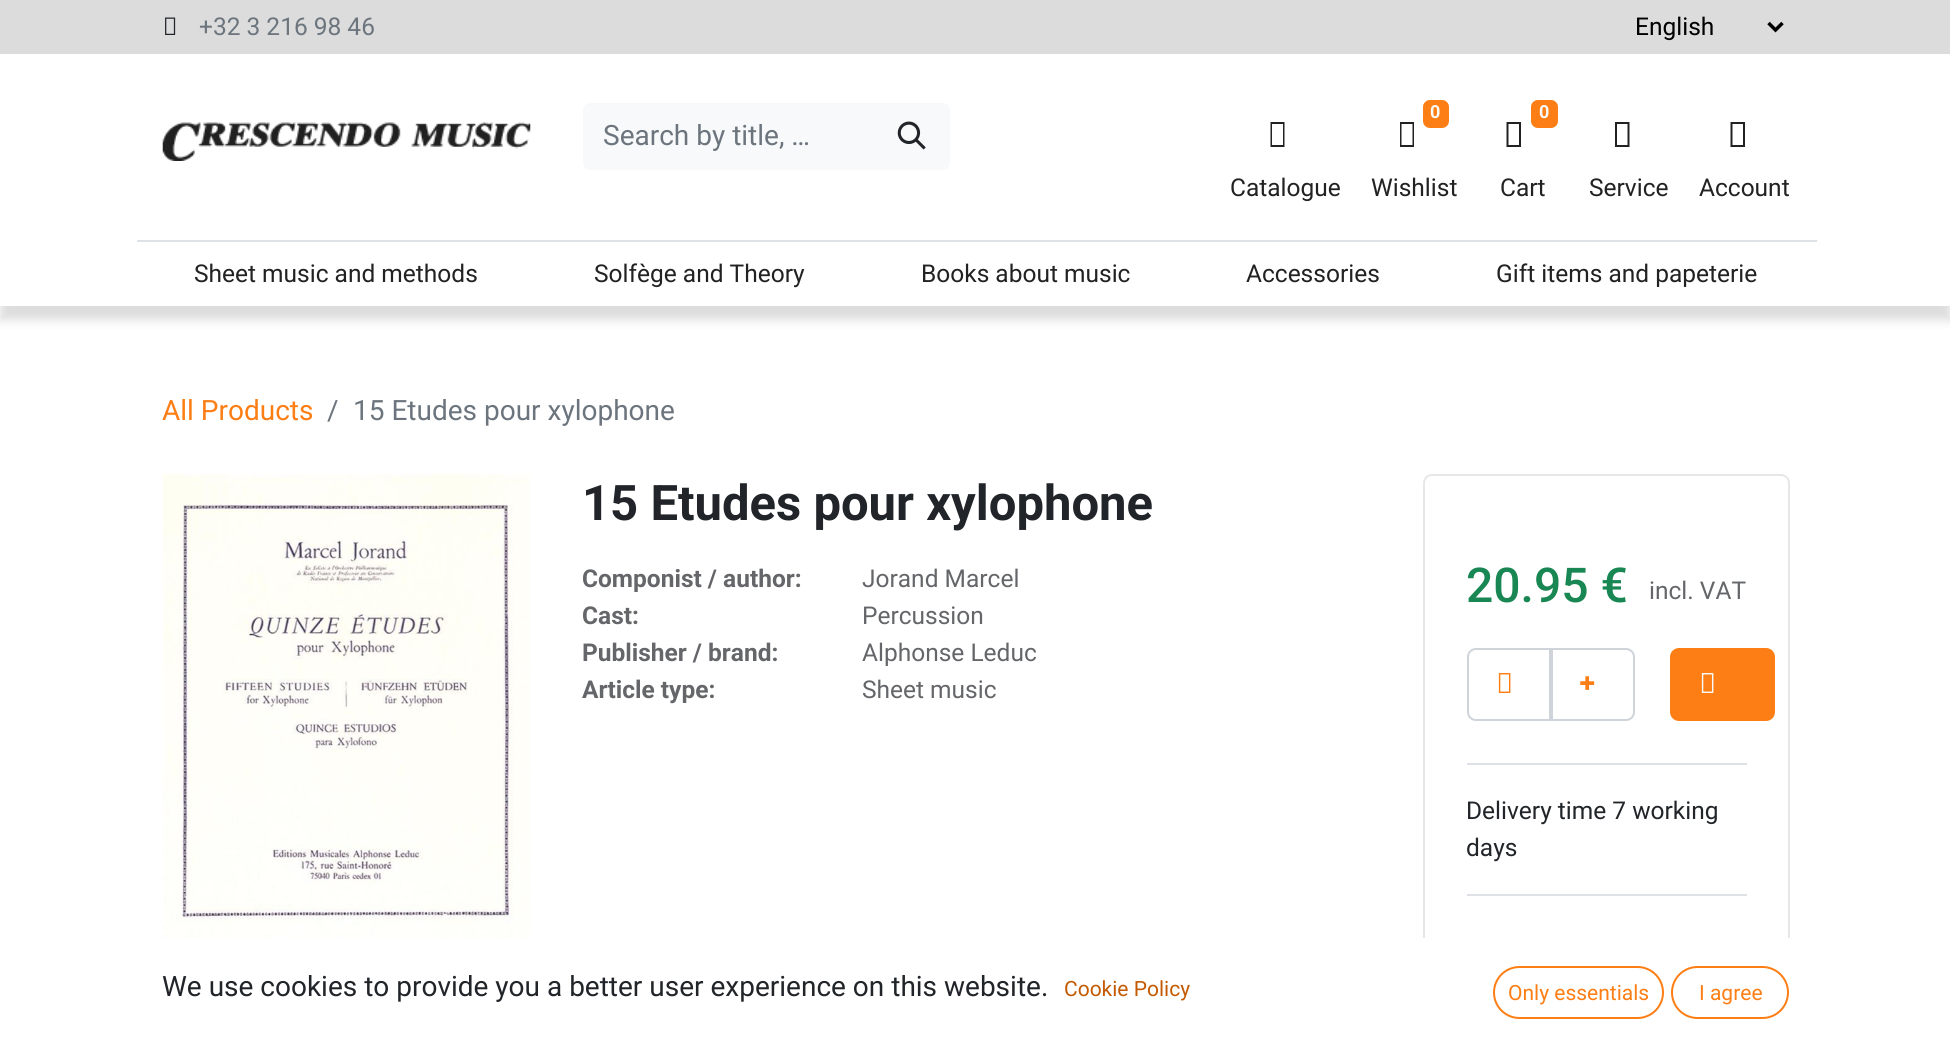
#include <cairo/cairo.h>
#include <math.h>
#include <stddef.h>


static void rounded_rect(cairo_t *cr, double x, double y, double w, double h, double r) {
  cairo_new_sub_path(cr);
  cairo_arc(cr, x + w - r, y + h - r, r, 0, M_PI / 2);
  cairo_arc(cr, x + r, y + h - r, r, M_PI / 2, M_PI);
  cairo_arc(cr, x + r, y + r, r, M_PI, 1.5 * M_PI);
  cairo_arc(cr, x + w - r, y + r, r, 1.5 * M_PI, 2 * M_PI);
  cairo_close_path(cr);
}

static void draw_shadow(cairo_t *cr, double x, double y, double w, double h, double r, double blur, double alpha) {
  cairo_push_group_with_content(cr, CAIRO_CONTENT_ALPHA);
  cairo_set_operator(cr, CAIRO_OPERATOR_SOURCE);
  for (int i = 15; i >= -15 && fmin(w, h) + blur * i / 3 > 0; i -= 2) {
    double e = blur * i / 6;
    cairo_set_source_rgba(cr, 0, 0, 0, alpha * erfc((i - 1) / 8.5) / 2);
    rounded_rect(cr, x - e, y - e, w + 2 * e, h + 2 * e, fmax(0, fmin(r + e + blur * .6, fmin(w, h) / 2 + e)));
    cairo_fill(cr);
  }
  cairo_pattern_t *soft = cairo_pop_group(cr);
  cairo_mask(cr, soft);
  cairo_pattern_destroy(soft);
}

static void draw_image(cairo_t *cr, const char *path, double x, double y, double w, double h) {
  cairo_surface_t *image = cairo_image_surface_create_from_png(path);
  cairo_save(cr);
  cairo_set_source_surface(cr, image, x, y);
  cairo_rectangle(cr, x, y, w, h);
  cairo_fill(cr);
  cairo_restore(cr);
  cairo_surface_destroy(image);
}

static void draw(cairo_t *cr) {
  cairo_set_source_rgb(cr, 1, 1, 1);
  cairo_paint(cr);
  cairo_set_source_rgb(cr, 220 / 255.0, 220 / 255.0, 220 / 255.0);
  cairo_rectangle(cr, 0, 0, 1950, 54);
  cairo_fill(cr);
  draw_image(cr, "images/1.png", 165, 17, 11, 18);
  cairo_new_path(cr);
  cairo_move_to(cr, 1768.5, 23);
  cairo_line_to(cr, 1775.5, 30);
  cairo_line_to(cr, 1782.5, 23);
  cairo_set_source_rgb(cr, 0, 0, 0);
  cairo_set_line_width(cr, 3.5);
  cairo_stroke(cr);
  cairo_save(cr);
  cairo_rectangle(cr, 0, 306, 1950, 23);
  cairo_clip(cr);
  cairo_set_source_rgb(cr, 199 / 255.0, 199 / 255.0, 199 / 255.0);
  draw_shadow(cr, 0, 68, 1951, 252, 0, 5, 0.62);
  cairo_restore(cr);
  draw_image(cr, "images/2.png", 162, 122, 369, 39);
  cairo_set_source_rgb(cr, 248 / 255.0, 249 / 255.0, 250 / 255.0);
  cairo_new_path(cr);
  cairo_move_to(cr, 590, 103);
  cairo_line_to(cr, 877, 103);
  cairo_line_to(cr, 877, 170);
  cairo_line_to(cr, 590, 170);
  cairo_curve_to(cr, 586, 170, 583, 167, 583, 163);
  cairo_line_to(cr, 583, 110);
  cairo_curve_to(cr, 583, 106, 586, 103, 590, 103);
  cairo_close_path(cr);
  cairo_fill(cr);
  cairo_new_path(cr);
  cairo_move_to(cr, 875, 103);
  cairo_line_to(cr, 943, 103);
  cairo_curve_to(cr, 947, 103, 950, 106, 950, 110);
  cairo_line_to(cr, 950, 163);
  cairo_curve_to(cr, 950, 167, 947, 170, 943, 170);
  cairo_line_to(cr, 875, 170);
  cairo_close_path(cr);
  cairo_fill(cr);
  draw_image(cr, "images/3.png", 897, 121, 29, 29);
  cairo_set_source_rgb(cr, 34 / 255.0, 34 / 255.0, 34 / 255.0);
  cairo_new_path(cr);
  cairo_move_to(cr, 1270.5, 147);
  cairo_line_to(cr, 1270.5, 122);
  cairo_line_to(cr, 1284.5, 122);
  cairo_line_to(cr, 1284.5, 147);
  cairo_close_path(cr);
  cairo_move_to(cr, 1272, 145);
  cairo_line_to(cr, 1283, 145);
  cairo_line_to(cr, 1283, 124);
  cairo_line_to(cr, 1272, 124);
  cairo_close_path(cr);
  cairo_fill(cr);
  cairo_set_source_rgb(cr, 253 / 255.0, 126 / 255.0, 20 / 255.0);
  rounded_rect(cr, 1423, 100, 26, 28, 7);
  cairo_fill(cr);
  cairo_set_source_rgb(cr, 34 / 255.0, 34 / 255.0, 34 / 255.0);
  cairo_new_path(cr);
  cairo_move_to(cr, 1400, 147);
  cairo_line_to(cr, 1400, 122);
  cairo_line_to(cr, 1414, 122);
  cairo_line_to(cr, 1414, 147);
  cairo_close_path(cr);
  cairo_move_to(cr, 1401.5, 145);
  cairo_line_to(cr, 1412.5, 145);
  cairo_line_to(cr, 1412.5, 124);
  cairo_line_to(cr, 1401.5, 124);
  cairo_close_path(cr);
  cairo_fill(cr);
  cairo_set_source_rgb(cr, 253 / 255.0, 126 / 255.0, 20 / 255.0);
  rounded_rect(cr, 1531, 100, 27, 28, 7);
  cairo_fill(cr);
  cairo_set_source_rgb(cr, 34 / 255.0, 34 / 255.0, 34 / 255.0);
  cairo_new_path(cr);
  cairo_move_to(cr, 1506.5, 147);
  cairo_line_to(cr, 1506.5, 122);
  cairo_line_to(cr, 1521, 122);
  cairo_line_to(cr, 1521, 147);
  cairo_close_path(cr);
  cairo_move_to(cr, 1508.5, 145);
  cairo_line_to(cr, 1519, 145);
  cairo_line_to(cr, 1519, 124);
  cairo_line_to(cr, 1508.5, 124);
  cairo_close_path(cr);
  cairo_fill(cr);
  cairo_new_path(cr);
  cairo_move_to(cr, 1615, 147);
  cairo_line_to(cr, 1615, 122);
  cairo_line_to(cr, 1629.5, 122);
  cairo_line_to(cr, 1629.5, 147);
  cairo_close_path(cr);
  cairo_move_to(cr, 1617, 145);
  cairo_line_to(cr, 1627.5, 145);
  cairo_line_to(cr, 1627.5, 124);
  cairo_line_to(cr, 1617, 124);
  cairo_close_path(cr);
  cairo_fill(cr);
  cairo_new_path(cr);
  cairo_move_to(cr, 1730.5, 147);
  cairo_line_to(cr, 1730.5, 122);
  cairo_line_to(cr, 1745, 122);
  cairo_line_to(cr, 1745, 147);
  cairo_close_path(cr);
  cairo_move_to(cr, 1732.5, 145);
  cairo_line_to(cr, 1743, 145);
  cairo_line_to(cr, 1743, 124);
  cairo_line_to(cr, 1732.5, 124);
  cairo_close_path(cr);
  cairo_fill(cr);
  cairo_set_source_rgb(cr, 222 / 255.0, 226 / 255.0, 230 / 255.0);
  cairo_rectangle(cr, 137, 240, 1680, 2);
  cairo_fill(cr);
  draw_image(cr, "images/4.png", 163, 474, 367, 464);
  rounded_rect(cr, 1424, 475, 365, 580, 8);
  cairo_set_source_rgb(cr, 231 / 255.0, 231 / 255.0, 231 / 255.0);
  cairo_set_line_width(cr, 2);
  cairo_stroke(cr);
  cairo_new_path(cr);
  cairo_move_to(cr, 1476, 649);
  cairo_line_to(cr, 1550, 649);
  cairo_line_to(cr, 1550, 720);
  cairo_line_to(cr, 1476, 720);
  cairo_curve_to(cr, 1471.5, 720, 1468, 716.5, 1468, 712);
  cairo_line_to(cr, 1468, 657);
  cairo_curve_to(cr, 1468, 652.5, 1471.5, 649, 1476, 649);
  cairo_close_path(cr);
  cairo_set_source_rgb(cr, 206 / 255.0, 212 / 255.0, 218 / 255.0);
  cairo_stroke(cr);
  draw_image(cr, "images/5.png", 1498, 673, 13, 20);
  cairo_new_path(cr);
  cairo_move_to(cr, 1552, 649);
  cairo_line_to(cr, 1626, 649);
  cairo_curve_to(cr, 1630.5, 649, 1634, 652.5, 1634, 657);
  cairo_line_to(cr, 1634, 712);
  cairo_curve_to(cr, 1634, 716.5, 1630.5, 720, 1626, 720);
  cairo_line_to(cr, 1552, 720);
  cairo_close_path(cr);
  cairo_stroke(cr);
  cairo_set_source_rgb(cr, 253 / 255.0, 126 / 255.0, 20 / 255.0);
  rounded_rect(cr, 1671, 649, 103, 71, 8);
  cairo_fill_preserve(cr);
  cairo_stroke(cr);
  draw_image(cr, "images/6.png", 1701, 673, 13, 20);
  cairo_set_source_rgb(cr, 222 / 255.0, 226 / 255.0, 230 / 255.0);
  cairo_rectangle(cr, 1467, 763, 280, 2);
  cairo_fill(cr);
  cairo_rectangle(cr, 1467, 894, 280, 2);
  cairo_fill(cr);
  cairo_set_source_rgb(cr, 1, 1, 1);
  cairo_rectangle(cr, 1423, 938, 367, 107);
  cairo_fill(cr);
  rounded_rect(cr, 1494, 967, 169, 51, 25.5);
  cairo_set_source_rgb(cr, 253 / 255.0, 126 / 255.0, 20 / 255.0);
  cairo_stroke(cr);
  rounded_rect(cr, 1672, 967, 116, 51, 25.5);
  cairo_stroke(cr);
  cairo_select_font_face(cr, "Roboto", CAIRO_FONT_SLANT_NORMAL, CAIRO_FONT_WEIGHT_NORMAL);
  cairo_set_font_size(cr, 24.5);
  cairo_set_source_rgb(cr, 108 / 255.0, 117 / 255.0, 125 / 255.0);
  cairo_move_to(cr, 199, 35);
  cairo_show_text(cr, "+32 3 216 98 46");
  cairo_set_source_rgb(cr, 0, 0, 0);
  cairo_move_to(cr, 1635, 35);
  cairo_show_text(cr, "English");
  cairo_set_font_size(cr, 28);
  cairo_set_source_rgb(cr, 108 / 255.0, 117 / 255.0, 125 / 255.0);
  cairo_move_to(cr, 603, 145);
  cairo_show_text(cr, "Search by title, …");
  cairo_set_font_size(cr, 24.5);
  cairo_set_source_rgb(cr, 34 / 255.0, 34 / 255.0, 34 / 255.0);
  cairo_move_to(cr, 1230, 196);
  cairo_show_text(cr, "Catalogue");
  cairo_select_font_face(cr, "Roboto", CAIRO_FONT_SLANT_NORMAL, CAIRO_FONT_WEIGHT_BOLD);
  cairo_set_font_size(cr, 18);
  cairo_set_source_rgb(cr, 248 / 255.0, 249 / 255.0, 250 / 255.0);
  cairo_move_to(cr, 1430, 118);
  cairo_show_text(cr, "0");
  cairo_select_font_face(cr, "Roboto", CAIRO_FONT_SLANT_NORMAL, CAIRO_FONT_WEIGHT_NORMAL);
  cairo_set_font_size(cr, 24.5);
  cairo_set_source_rgb(cr, 34 / 255.0, 34 / 255.0, 34 / 255.0);
  cairo_move_to(cr, 1371, 196);
  cairo_show_text(cr, "Wishlist");
  cairo_select_font_face(cr, "Roboto", CAIRO_FONT_SLANT_NORMAL, CAIRO_FONT_WEIGHT_BOLD);
  cairo_set_font_size(cr, 18);
  cairo_set_source_rgb(cr, 248 / 255.0, 249 / 255.0, 250 / 255.0);
  cairo_move_to(cr, 1539, 118);
  cairo_show_text(cr, "0");
  cairo_select_font_face(cr, "Roboto", CAIRO_FONT_SLANT_NORMAL, CAIRO_FONT_WEIGHT_NORMAL);
  cairo_set_font_size(cr, 24.5);
  cairo_set_source_rgb(cr, 34 / 255.0, 34 / 255.0, 34 / 255.0);
  cairo_move_to(cr, 1500, 196);
  cairo_show_text(cr, "Cart");
  cairo_move_to(cr, 1589, 196);
  cairo_show_text(cr, "Service");
  cairo_move_to(cr, 1699, 196);
  cairo_show_text(cr, "Account");
  cairo_move_to(cr, 194, 282);
  cairo_show_text(cr, "Sheet music and methods");
  cairo_move_to(cr, 594, 282);
  cairo_show_text(cr, "Solfège and Theory");
  cairo_move_to(cr, 921, 282);
  cairo_show_text(cr, "Books about music");
  cairo_move_to(cr, 1246, 282);
  cairo_show_text(cr, "Accessories");
  cairo_move_to(cr, 1496, 282);
  cairo_show_text(cr, "Gift items and papeterie");
  cairo_set_font_size(cr, 28);
  cairo_set_source_rgb(cr, 253 / 255.0, 126 / 255.0, 20 / 255.0);
  cairo_move_to(cr, 162, 420);
  cairo_show_text(cr, "All Products");
  cairo_set_source_rgb(cr, 108 / 255.0, 117 / 255.0, 125 / 255.0);
  cairo_move_to(cr, 327, 420);
  cairo_show_text(cr, "/");
  cairo_move_to(cr, 353, 420);
  cairo_show_text(cr, "15 Etudes pour xylophone");
  cairo_select_font_face(cr, "Roboto", CAIRO_FONT_SLANT_NORMAL, CAIRO_FONT_WEIGHT_BOLD);
  cairo_set_font_size(cr, 49);
  cairo_set_source_rgb(cr, 33 / 255.0, 37 / 255.0, 41 / 255.0);
  cairo_move_to(cr, 582, 520);
  cairo_show_text(cr, "15 Etudes pour xylophone");
  cairo_set_font_size(cr, 24.5);
  cairo_set_source_rgb(cr, 100 / 255.0, 102 / 255.0, 105 / 255.0);
  cairo_move_to(cr, 582, 587);
  cairo_show_text(cr, "Componist / author:");
  cairo_select_font_face(cr, "Roboto", CAIRO_FONT_SLANT_NORMAL, CAIRO_FONT_WEIGHT_NORMAL);
  cairo_move_to(cr, 862, 587);
  cairo_show_text(cr, "Jorand Marcel");
  cairo_select_font_face(cr, "Roboto", CAIRO_FONT_SLANT_NORMAL, CAIRO_FONT_WEIGHT_BOLD);
  cairo_move_to(cr, 582, 624);
  cairo_show_text(cr, "Cast:");
  cairo_select_font_face(cr, "Roboto", CAIRO_FONT_SLANT_NORMAL, CAIRO_FONT_WEIGHT_NORMAL);
  cairo_move_to(cr, 862, 624);
  cairo_show_text(cr, "Percussion");
  cairo_select_font_face(cr, "Roboto", CAIRO_FONT_SLANT_NORMAL, CAIRO_FONT_WEIGHT_BOLD);
  cairo_move_to(cr, 582, 661);
  cairo_show_text(cr, "Publisher / brand:");
  cairo_select_font_face(cr, "Roboto", CAIRO_FONT_SLANT_NORMAL, CAIRO_FONT_WEIGHT_NORMAL);
  cairo_move_to(cr, 862, 661);
  cairo_show_text(cr, "Alphonse Leduc");
  cairo_select_font_face(cr, "Roboto", CAIRO_FONT_SLANT_NORMAL, CAIRO_FONT_WEIGHT_BOLD);
  cairo_move_to(cr, 582, 698);
  cairo_show_text(cr, "Article type:");
  cairo_select_font_face(cr, "Roboto", CAIRO_FONT_SLANT_NORMAL, CAIRO_FONT_WEIGHT_NORMAL);
  cairo_move_to(cr, 862, 698);
  cairo_show_text(cr, "Sheet music");
  cairo_select_font_face(cr, "Roboto Medium", CAIRO_FONT_SLANT_NORMAL, CAIRO_FONT_WEIGHT_NORMAL);
  cairo_set_font_size(cr, 48);
  cairo_set_source_rgb(cr, 25 / 255.0, 135 / 255.0, 84 / 255.0);
  cairo_move_to(cr, 1466, 602);
  cairo_show_text(cr, "20.95 €");
  cairo_select_font_face(cr, "Roboto", CAIRO_FONT_SLANT_NORMAL, CAIRO_FONT_WEIGHT_NORMAL);
  cairo_set_font_size(cr, 24.5);
  cairo_set_source_rgb(cr, 100 / 255.0, 102 / 255.0, 105 / 255.0);
  cairo_move_to(cr, 1649, 599);
  cairo_show_text(cr, "incl. VAT");
  cairo_select_font_face(cr, "Noto Sans Black", CAIRO_FONT_SLANT_NORMAL, CAIRO_FONT_WEIGHT_NORMAL);
  cairo_set_font_size(cr, 28);
  cairo_set_source_rgb(cr, 253 / 255.0, 126 / 255.0, 20 / 255.0);
  cairo_move_to(cr, 1579, 693);
  cairo_show_text(cr, "+");
  cairo_select_font_face(cr, "Roboto", CAIRO_FONT_SLANT_NORMAL, CAIRO_FONT_WEIGHT_NORMAL);
  cairo_set_font_size(cr, 24.5);
  cairo_set_source_rgb(cr, 33 / 255.0, 37 / 255.0, 41 / 255.0);
  cairo_move_to(cr, 1466, 819);
  cairo_show_text(cr, "Delivery time 7 working");
  cairo_move_to(cr, 1466, 856);
  cairo_show_text(cr, "days");
  cairo_set_font_size(cr, 28);
  cairo_move_to(cr, 162, 996);
  cairo_show_text(cr, "We use cookies to provide you a better user experience on this website.");
  cairo_set_font_size(cr, 21);
  cairo_set_source_rgb(cr, 195 / 255.0, 90 / 255.0, 2 / 255.0);
  cairo_move_to(cr, 1064, 996);
  cairo_show_text(cr, "Cookie Policy");
  cairo_set_source_rgb(cr, 253 / 255.0, 126 / 255.0, 20 / 255.0);
  cairo_move_to(cr, 1508, 1000);
  cairo_show_text(cr, "Only essentials");
  cairo_move_to(cr, 1699, 1000);
  cairo_show_text(cr, "I agree");
}

int main(void) {
  cairo_surface_t *surface = cairo_image_surface_create(CAIRO_FORMAT_RGB24, 1950, 1045);
  cairo_t *cr = cairo_create(surface);
  cairo_font_options_t *options = cairo_font_options_create();
  cairo_font_options_set_hint_metrics(options, CAIRO_HINT_METRICS_OFF);
  cairo_font_options_set_hint_style(options, CAIRO_HINT_STYLE_NONE);
  cairo_set_font_options(cr, options);
  cairo_set_miter_limit(cr, 4);
  draw(cr);
  cairo_surface_write_to_png(surface, "out.png");
  cairo_font_options_destroy(options);
  cairo_destroy(cr);
  cairo_surface_destroy(surface);
  return 0;
}
